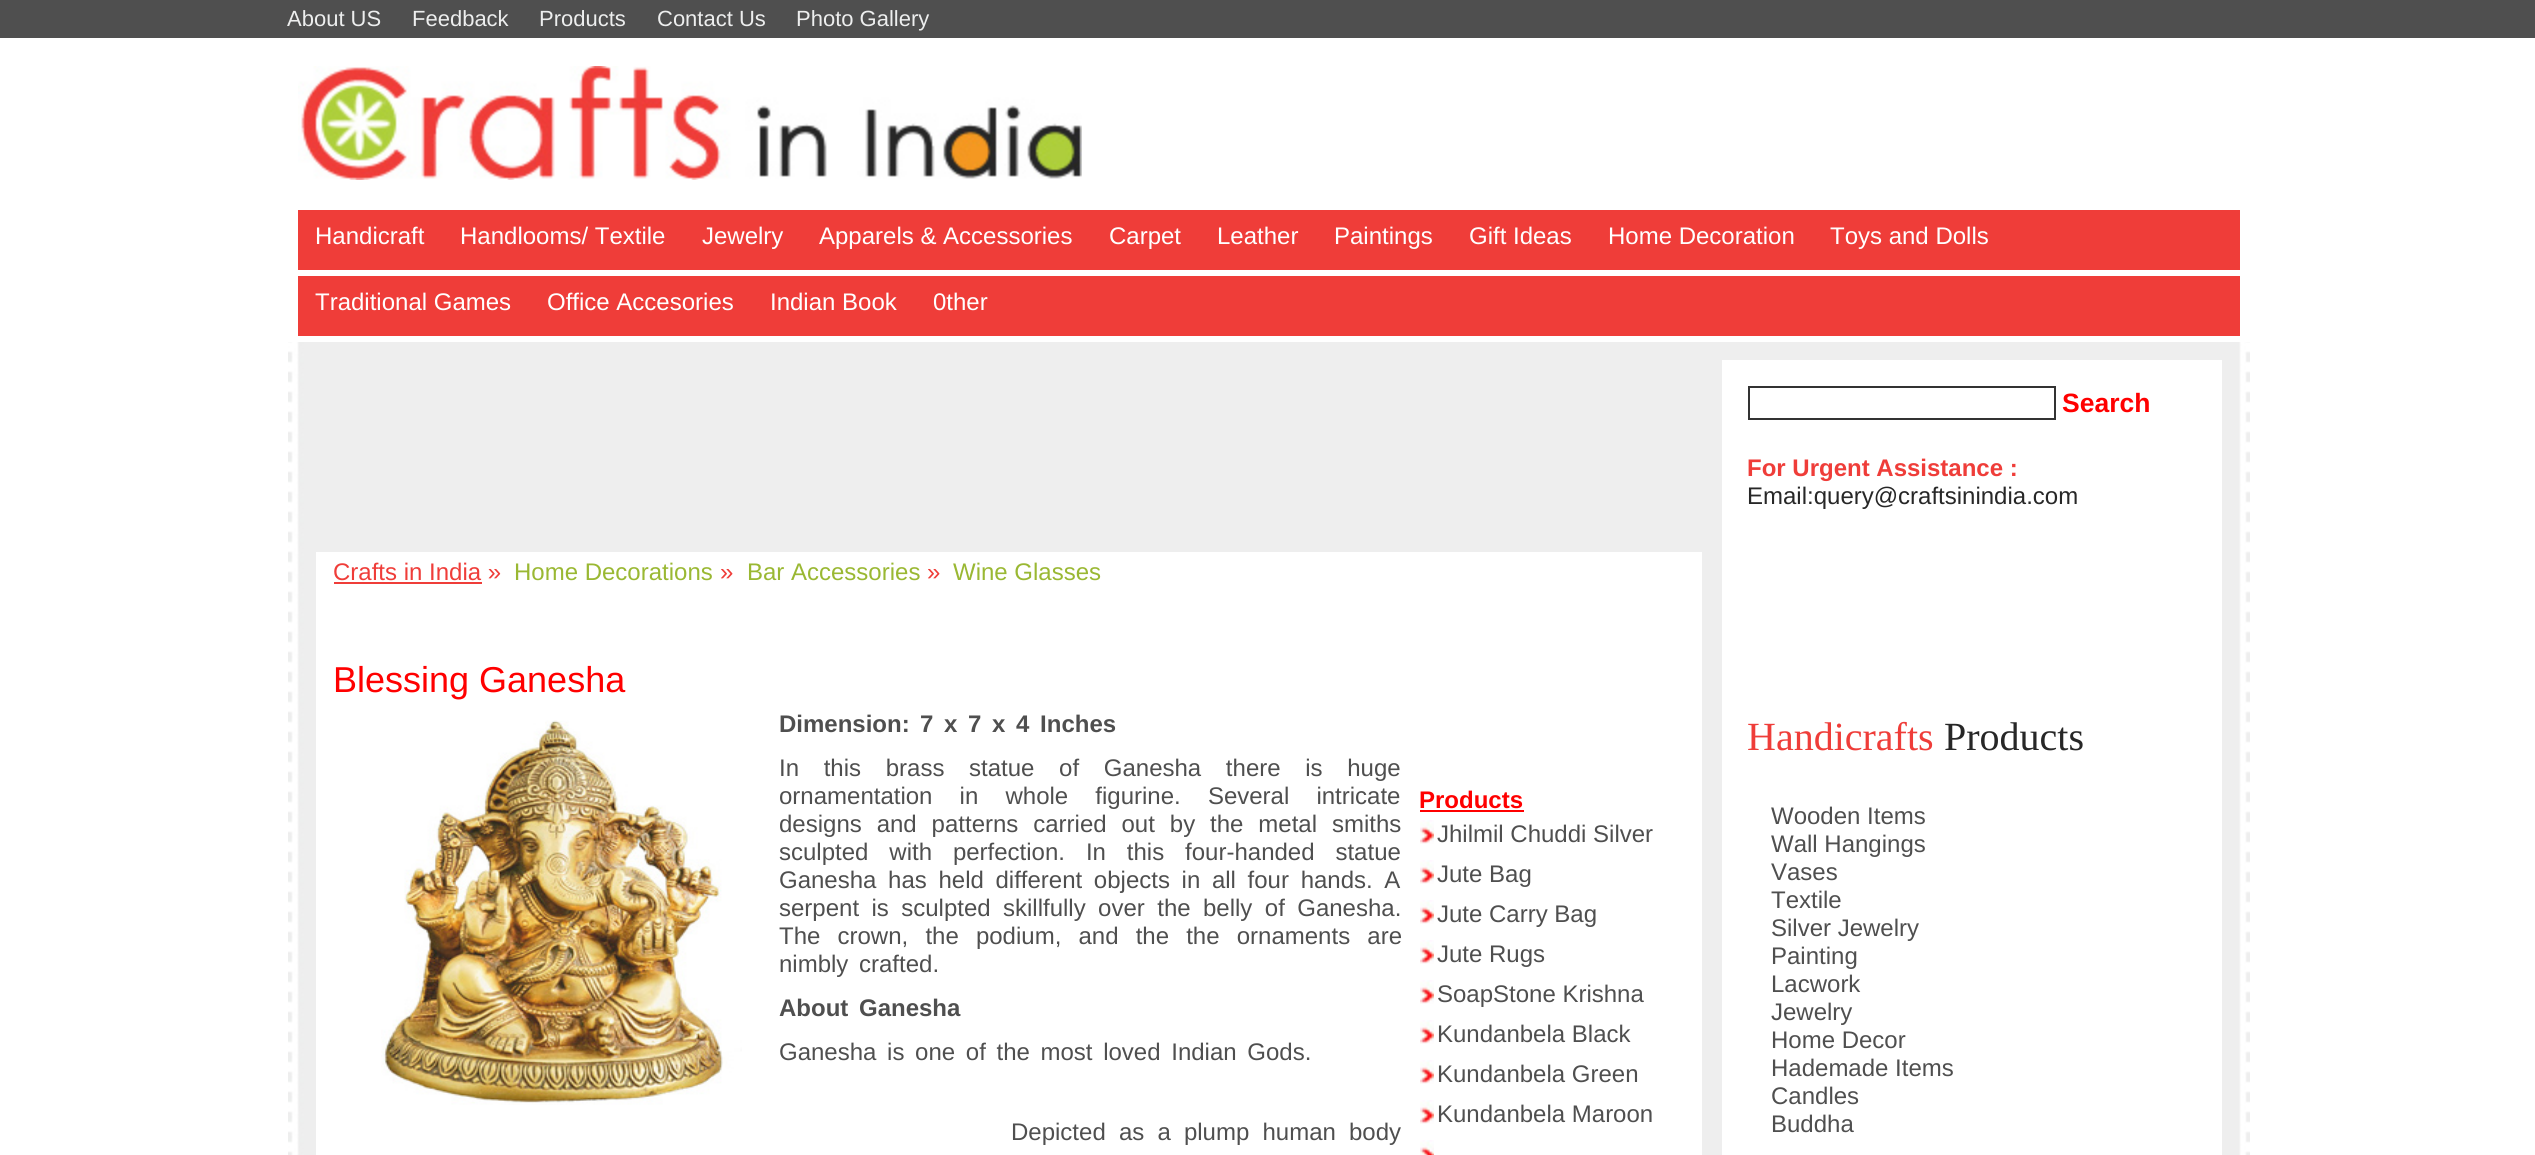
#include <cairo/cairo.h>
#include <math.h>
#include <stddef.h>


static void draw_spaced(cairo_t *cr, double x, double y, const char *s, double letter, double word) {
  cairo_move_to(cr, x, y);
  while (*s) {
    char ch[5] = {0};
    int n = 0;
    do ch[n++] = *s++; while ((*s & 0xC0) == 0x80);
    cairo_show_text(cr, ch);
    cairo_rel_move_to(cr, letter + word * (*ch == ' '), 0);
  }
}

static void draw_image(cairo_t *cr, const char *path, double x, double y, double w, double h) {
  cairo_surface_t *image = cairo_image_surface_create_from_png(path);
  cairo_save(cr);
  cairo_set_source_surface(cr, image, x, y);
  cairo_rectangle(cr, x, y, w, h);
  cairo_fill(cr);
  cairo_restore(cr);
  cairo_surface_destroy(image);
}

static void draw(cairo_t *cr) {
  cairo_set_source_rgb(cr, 1, 1, 1);
  cairo_paint(cr);
  cairo_set_source_rgb(cr, 79 / 255.0, 79 / 255.0, 79 / 255.0);
  cairo_rectangle(cr, 0, 0, 2535, 38);
  cairo_fill(cr);
  draw_image(cr, "images/1.png", 298, 66, 784, 114);
  cairo_set_source_rgb(cr, 239 / 255.0, 61 / 255.0, 57 / 255.0);
  cairo_rectangle(cr, 298, 210, 1942, 60);
  cairo_fill(cr);
  cairo_rectangle(cr, 298, 276, 1942, 60);
  cairo_fill(cr);
  draw_image(cr, "images/2.png", 288, 342, 1962, 813);
  cairo_set_source_rgb(cr, 1, 1, 1);
  cairo_rectangle(cr, 316, 552, 1386, 603);
  cairo_fill(cr);
  cairo_set_source_rgb(cr, 239 / 255.0, 61 / 255.0, 57 / 255.0);
  cairo_rectangle(cr, 334, 582, 148, 2);
  cairo_fill(cr);
  draw_image(cr, "images/3.png", 381, 720, 361, 385);
  cairo_set_source_rgb(cr, 1, 0, 0);
  cairo_rectangle(cr, 1420, 810, 104, 2);
  cairo_fill(cr);
  draw_image(cr, "images/4.png", 1420, 820, 14, 24);
  draw_image(cr, "images/4.png", 1420, 860, 14, 24);
  draw_image(cr, "images/4.png", 1420, 900, 14, 24);
  draw_image(cr, "images/4.png", 1420, 940, 14, 24);
  draw_image(cr, "images/4.png", 1420, 980, 14, 24);
  draw_image(cr, "images/4.png", 1420, 1020, 14, 24);
  draw_image(cr, "images/4.png", 1420, 1060, 14, 24);
  draw_image(cr, "images/4.png", 1420, 1100, 14, 24);
  draw_image(cr, "images/5.png", 1420, 1140, 14, 15);
  cairo_set_source_rgb(cr, 1, 1, 1);
  cairo_rectangle(cr, 1722, 360, 500, 795);
  cairo_fill(cr);
  cairo_rectangle(cr, 1749, 387, 306, 32);
  cairo_set_source_rgb(cr, 51 / 255.0, 51 / 255.0, 51 / 255.0);
  cairo_stroke(cr);
  cairo_select_font_face(cr, "Liberation Sans", CAIRO_FONT_SLANT_NORMAL, CAIRO_FONT_WEIGHT_NORMAL);
  cairo_set_font_size(cr, 22);
  cairo_set_source_rgb(cr, 237 / 255.0, 238 / 255.0, 238 / 255.0);
  cairo_move_to(cr, 287, 26);
  cairo_show_text(cr, "About US");
  cairo_move_to(cr, 412, 26);
  cairo_show_text(cr, "Feedback");
  cairo_move_to(cr, 539, 26);
  cairo_show_text(cr, "Products");
  cairo_move_to(cr, 657, 26);
  cairo_show_text(cr, "Contact Us");
  cairo_move_to(cr, 796, 26);
  cairo_show_text(cr, "Photo Gallery");
  cairo_set_font_size(cr, 24);
  cairo_set_source_rgb(cr, 1, 1, 1);
  cairo_move_to(cr, 315, 244);
  cairo_show_text(cr, "Handicraft");
  cairo_move_to(cr, 460, 244);
  cairo_show_text(cr, "Handlooms/ Textile");
  cairo_move_to(cr, 702, 244);
  cairo_show_text(cr, "Jewelry");
  cairo_move_to(cr, 819, 244);
  cairo_show_text(cr, "Apparels & Accessories");
  cairo_move_to(cr, 1109, 244);
  cairo_show_text(cr, "Carpet");
  cairo_move_to(cr, 1217, 244);
  cairo_show_text(cr, "Leather");
  cairo_move_to(cr, 1334, 244);
  cairo_show_text(cr, "Paintings");
  cairo_move_to(cr, 1469, 244);
  cairo_show_text(cr, "Gift Ideas");
  cairo_move_to(cr, 1608, 244);
  cairo_show_text(cr, "Home Decoration");
  cairo_move_to(cr, 1830, 244);
  cairo_show_text(cr, "Toys and Dolls");
  cairo_move_to(cr, 315, 310);
  cairo_show_text(cr, "Traditional Games");
  cairo_move_to(cr, 547, 310);
  cairo_show_text(cr, "Office Accesories");
  cairo_move_to(cr, 770, 310);
  cairo_show_text(cr, "Indian Book");
  cairo_move_to(cr, 933, 310);
  cairo_show_text(cr, "0ther");
  cairo_set_source_rgb(cr, 239 / 255.0, 61 / 255.0, 57 / 255.0);
  cairo_move_to(cr, 333, 580);
  cairo_show_text(cr, "Crafts in India »");
  cairo_set_source_rgb(cr, 154 / 255.0, 184 / 255.0, 51 / 255.0);
  cairo_move_to(cr, 514, 580);
  cairo_show_text(cr, "Home Decorations");
  cairo_set_source_rgb(cr, 239 / 255.0, 61 / 255.0, 57 / 255.0);
  cairo_move_to(cr, 720, 580);
  cairo_show_text(cr, "»");
  cairo_set_source_rgb(cr, 154 / 255.0, 184 / 255.0, 51 / 255.0);
  cairo_move_to(cr, 747, 580);
  cairo_show_text(cr, "Bar Accessories");
  cairo_set_source_rgb(cr, 239 / 255.0, 61 / 255.0, 57 / 255.0);
  cairo_move_to(cr, 927, 580);
  cairo_show_text(cr, "»");
  cairo_set_source_rgb(cr, 154 / 255.0, 184 / 255.0, 51 / 255.0);
  cairo_move_to(cr, 953, 580);
  cairo_show_text(cr, "Wine Glasses");
  cairo_set_font_size(cr, 36);
  cairo_set_source_rgb(cr, 1, 0, 0);
  cairo_move_to(cr, 333, 692);
  cairo_show_text(cr, "Blessing Ganesha");
  cairo_select_font_face(cr, "Liberation Sans", CAIRO_FONT_SLANT_NORMAL, CAIRO_FONT_WEIGHT_BOLD);
  cairo_set_font_size(cr, 24);
  cairo_set_source_rgb(cr, 79 / 255.0, 79 / 255.0, 79 / 255.0);
  cairo_move_to(cr, 779, 732);
  cairo_show_text(cr, "Dimension:");
  draw_spaced(cr, 920, 732, "7 x 7 x 4 Inches", 0, 4);
  cairo_select_font_face(cr, "Liberation Sans", CAIRO_FONT_SLANT_NORMAL, CAIRO_FONT_WEIGHT_NORMAL);
  draw_spaced(cr, 779, 776, "In this brass statue of Ganesha there is huge", 0, 18);
  draw_spaced(cr, 779, 804, "ornamentation in whole figurine. Several intricate", 0, 20.5);
  draw_spaced(cr, 779, 832, "designs and patterns carried out by the metal smiths", 0, 8.25);
  draw_spaced(cr, 779, 860, "sculpted with perfection. In this four-handed statue", 0, 14.25);
  draw_spaced(cr, 779, 888, "Ganesha has held different objects in all four hands. A", 0, 5);
  draw_spaced(cr, 779, 916, "serpent is sculpted skillfully over the belly of Ganesha.", 0, 5.75);
  draw_spaced(cr, 779, 944, "The crown, the podium, and the the ornaments are", 0, 10.5);
  draw_spaced(cr, 779, 972, "nimbly crafted.", 0, 4);
  cairo_select_font_face(cr, "Liberation Sans", CAIRO_FONT_SLANT_NORMAL, CAIRO_FONT_WEIGHT_BOLD);
  draw_spaced(cr, 779, 1016, "About Ganesha", 0, 4);
  cairo_select_font_face(cr, "Liberation Sans", CAIRO_FONT_SLANT_NORMAL, CAIRO_FONT_WEIGHT_NORMAL);
  draw_spaced(cr, 779, 1060, "Ganesha is one of the most loved Indian Gods.", 0, 4);
  draw_spaced(cr, 1011, 1140, "Depicted as a plump human body", 0, 6.5);
  cairo_select_font_face(cr, "Liberation Sans", CAIRO_FONT_SLANT_NORMAL, CAIRO_FONT_WEIGHT_BOLD);
  cairo_set_source_rgb(cr, 1, 0, 0);
  cairo_move_to(cr, 1419, 808);
  cairo_show_text(cr, "Products");
  cairo_select_font_face(cr, "Liberation Sans", CAIRO_FONT_SLANT_NORMAL, CAIRO_FONT_WEIGHT_NORMAL);
  cairo_set_source_rgb(cr, 79 / 255.0, 79 / 255.0, 79 / 255.0);
  cairo_move_to(cr, 1437, 842);
  cairo_show_text(cr, "Jhilmil Chuddi Silver");
  cairo_move_to(cr, 1437, 882);
  cairo_show_text(cr, "Jute Bag");
  cairo_move_to(cr, 1437, 922);
  cairo_show_text(cr, "Jute Carry Bag");
  cairo_move_to(cr, 1437, 962);
  cairo_show_text(cr, "Jute Rugs");
  cairo_move_to(cr, 1437, 1002);
  cairo_show_text(cr, "SoapStone Krishna");
  cairo_move_to(cr, 1437, 1042);
  cairo_show_text(cr, "Kundanbela Black");
  cairo_move_to(cr, 1437, 1082);
  cairo_show_text(cr, "Kundanbela Green");
  cairo_move_to(cr, 1437, 1122);
  cairo_show_text(cr, "Kundanbela Maroon");
  cairo_select_font_face(cr, "Liberation Sans", CAIRO_FONT_SLANT_NORMAL, CAIRO_FONT_WEIGHT_BOLD);
  cairo_set_font_size(cr, 26.5);
  cairo_set_source_rgb(cr, 1, 0, 0);
  cairo_move_to(cr, 2062, 412);
  cairo_show_text(cr, "Search");
  cairo_set_font_size(cr, 24);
  cairo_set_source_rgb(cr, 239 / 255.0, 61 / 255.0, 57 / 255.0);
  cairo_move_to(cr, 1747, 476);
  cairo_show_text(cr, "For Urgent Assistance :");
  cairo_select_font_face(cr, "Liberation Sans", CAIRO_FONT_SLANT_NORMAL, CAIRO_FONT_WEIGHT_NORMAL);
  cairo_set_source_rgb(cr, 39 / 255.0, 39 / 255.0, 39 / 255.0);
  cairo_move_to(cr, 1747, 504);
  cairo_show_text(cr, "Email:query@craftsinindia.com");
  cairo_select_font_face(cr, "Liberation Serif", CAIRO_FONT_SLANT_NORMAL, CAIRO_FONT_WEIGHT_NORMAL);
  cairo_set_font_size(cr, 40);
  cairo_set_source_rgb(cr, 239 / 255.0, 61 / 255.0, 57 / 255.0);
  cairo_move_to(cr, 1747, 750);
  cairo_show_text(cr, "Handicrafts");
  cairo_set_source_rgb(cr, 39 / 255.0, 39 / 255.0, 39 / 255.0);
  cairo_move_to(cr, 1944, 750);
  cairo_show_text(cr, "Products");
  cairo_select_font_face(cr, "Liberation Sans", CAIRO_FONT_SLANT_NORMAL, CAIRO_FONT_WEIGHT_NORMAL);
  cairo_set_font_size(cr, 24);
  cairo_set_source_rgb(cr, 79 / 255.0, 79 / 255.0, 79 / 255.0);
  cairo_move_to(cr, 1771, 824);
  cairo_show_text(cr, "Wooden Items");
  cairo_move_to(cr, 1771, 852);
  cairo_show_text(cr, "Wall Hangings");
  cairo_move_to(cr, 1771, 880);
  cairo_show_text(cr, "Vases");
  cairo_move_to(cr, 1771, 908);
  cairo_show_text(cr, "Textile");
  cairo_move_to(cr, 1771, 936);
  cairo_show_text(cr, "Silver Jewelry");
  cairo_move_to(cr, 1771, 964);
  cairo_show_text(cr, "Painting");
  cairo_move_to(cr, 1771, 992);
  cairo_show_text(cr, "Lacwork");
  cairo_move_to(cr, 1771, 1020);
  cairo_show_text(cr, "Jewelry");
  cairo_move_to(cr, 1771, 1048);
  cairo_show_text(cr, "Home Decor");
  cairo_move_to(cr, 1771, 1076);
  cairo_show_text(cr, "Hademade Items");
  cairo_move_to(cr, 1771, 1104);
  cairo_show_text(cr, "Candles");
  cairo_move_to(cr, 1771, 1132);
  cairo_show_text(cr, "Buddha");
}

int main(void) {
  cairo_surface_t *surface = cairo_image_surface_create(CAIRO_FORMAT_RGB24, 2535, 1155);
  cairo_t *cr = cairo_create(surface);
  cairo_font_options_t *options = cairo_font_options_create();
  cairo_font_options_set_hint_metrics(options, CAIRO_HINT_METRICS_OFF);
  cairo_font_options_set_hint_style(options, CAIRO_HINT_STYLE_NONE);
  cairo_set_font_options(cr, options);
  cairo_set_miter_limit(cr, 4);
  draw(cr);
  cairo_surface_write_to_png(surface, "out.png");
  cairo_font_options_destroy(options);
  cairo_destroy(cr);
  cairo_surface_destroy(surface);
  return 0;
}
